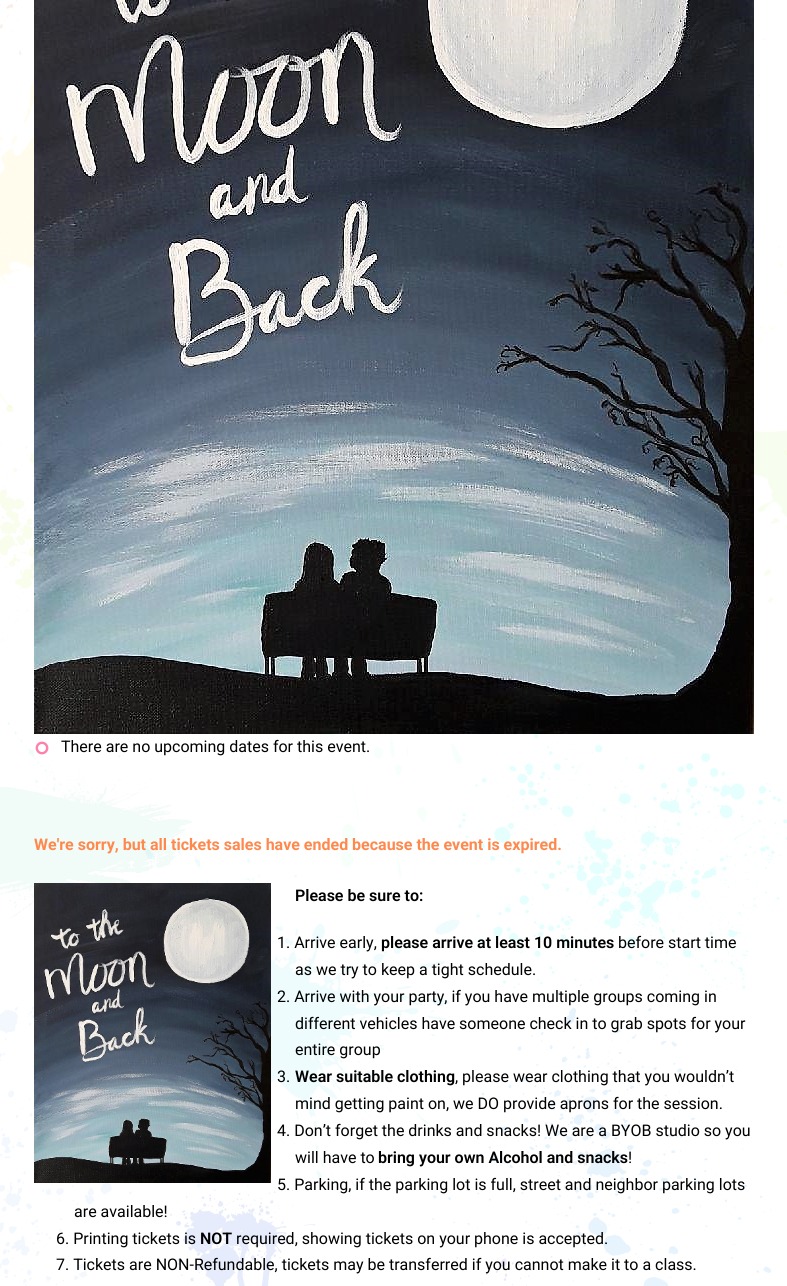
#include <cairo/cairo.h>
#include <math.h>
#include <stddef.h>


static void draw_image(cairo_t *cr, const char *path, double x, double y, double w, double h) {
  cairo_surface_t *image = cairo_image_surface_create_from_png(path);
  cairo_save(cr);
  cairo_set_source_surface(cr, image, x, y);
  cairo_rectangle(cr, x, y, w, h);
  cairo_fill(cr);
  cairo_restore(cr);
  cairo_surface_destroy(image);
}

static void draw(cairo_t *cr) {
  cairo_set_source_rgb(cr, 1, 1, 1);
  cairo_paint(cr);
  draw_image(cr, "images/1.png", 0, 0, 787, 1286);
  draw_image(cr, "images/2.png", 34, 0, 720, 734);
  draw_image(cr, "images/3.png", 35, 741, 14, 14);
  draw_image(cr, "images/4.png", 34, 883, 237, 300);
  cairo_select_font_face(cr, "Roboto", CAIRO_FONT_SLANT_NORMAL, CAIRO_FONT_WEIGHT_NORMAL);
  cairo_set_font_size(cr, 16);
  cairo_set_source_rgb(cr, 0, 0, 0);
  cairo_move_to(cr, 61, 752);
  cairo_show_text(cr, "There are no upcoming dates for this event.");
  cairo_select_font_face(cr, "Roboto", CAIRO_FONT_SLANT_NORMAL, CAIRO_FONT_WEIGHT_BOLD);
  cairo_set_source_rgb(cr, 1, 136 / 255.0, 77 / 255.0);
  cairo_move_to(cr, 34, 850);
  cairo_show_text(cr, "We're sorry, but all tickets sales have ended because the event is expired.");
  cairo_select_font_face(cr, "Roboto SemiBold", CAIRO_FONT_SLANT_NORMAL, CAIRO_FONT_WEIGHT_NORMAL);
  cairo_set_source_rgb(cr, 0, 0, 0);
  cairo_move_to(cr, 295, 901);
  cairo_show_text(cr, "Please be sure to:");
  cairo_select_font_face(cr, "Roboto", CAIRO_FONT_SLANT_NORMAL, CAIRO_FONT_WEIGHT_NORMAL);
  cairo_move_to(cr, 277, 948);
  cairo_show_text(cr, "1. Arrive early,");
  cairo_select_font_face(cr, "Roboto SemiBold", CAIRO_FONT_SLANT_NORMAL, CAIRO_FONT_WEIGHT_NORMAL);
  cairo_move_to(cr, 381, 948);
  cairo_show_text(cr, "please arrive at least 10 minutes");
  cairo_select_font_face(cr, "Roboto", CAIRO_FONT_SLANT_NORMAL, CAIRO_FONT_WEIGHT_NORMAL);
  cairo_move_to(cr, 618, 948);
  cairo_show_text(cr, "before start time");
  cairo_move_to(cr, 295, 975);
  cairo_show_text(cr, "as we try to keep a tight schedule.");
  cairo_move_to(cr, 277, 1002);
  cairo_show_text(cr, "2. Arrive with your party, if you have multiple groups coming in");
  cairo_move_to(cr, 295, 1029);
  cairo_show_text(cr, "different vehicles have someone check in to grab spots for your");
  cairo_move_to(cr, 295, 1055);
  cairo_show_text(cr, "entire group");
  cairo_move_to(cr, 277, 1082);
  cairo_show_text(cr, "3.");
  cairo_select_font_face(cr, "Roboto SemiBold", CAIRO_FONT_SLANT_NORMAL, CAIRO_FONT_WEIGHT_NORMAL);
  cairo_move_to(cr, 295, 1082);
  cairo_show_text(cr, "Wear suitable clothing");
  cairo_select_font_face(cr, "Roboto", CAIRO_FONT_SLANT_NORMAL, CAIRO_FONT_WEIGHT_NORMAL);
  cairo_move_to(cr, 455, 1082);
  cairo_show_text(cr, ", please wear clothing that you wouldn’t");
  cairo_move_to(cr, 295, 1109);
  cairo_show_text(cr, "mind getting paint on, we DO provide aprons for the session.");
  cairo_move_to(cr, 277, 1136);
  cairo_show_text(cr, "4. Don’t forget the drinks and snacks! We are a BYOB studio so you");
  cairo_move_to(cr, 295, 1163);
  cairo_show_text(cr, "will have to");
  cairo_select_font_face(cr, "Roboto SemiBold", CAIRO_FONT_SLANT_NORMAL, CAIRO_FONT_WEIGHT_NORMAL);
  cairo_move_to(cr, 378, 1163);
  cairo_show_text(cr, "bring your own Alcohol and snacks");
  cairo_select_font_face(cr, "Roboto", CAIRO_FONT_SLANT_NORMAL, CAIRO_FONT_WEIGHT_NORMAL);
  cairo_move_to(cr, 628, 1163);
  cairo_show_text(cr, "!");
  cairo_move_to(cr, 277, 1190);
  cairo_show_text(cr, "5. Parking, if the parking lot is full, street and neighbor parking lots");
  cairo_move_to(cr, 74, 1217);
  cairo_show_text(cr, "are available!");
  cairo_move_to(cr, 56, 1244);
  cairo_show_text(cr, "6. Printing tickets is");
  cairo_select_font_face(cr, "Roboto SemiBold", CAIRO_FONT_SLANT_NORMAL, CAIRO_FONT_WEIGHT_NORMAL);
  cairo_move_to(cr, 200, 1244);
  cairo_show_text(cr, "NOT");
  cairo_select_font_face(cr, "Roboto", CAIRO_FONT_SLANT_NORMAL, CAIRO_FONT_WEIGHT_NORMAL);
  cairo_move_to(cr, 236, 1244);
  cairo_show_text(cr, "required, showing tickets on your phone is accepted.");
  cairo_move_to(cr, 56, 1270);
  cairo_show_text(cr, "7. Tickets are NON-Refundable, tickets may be transferred if you cannot make it to a class.");
}

int main(void) {
  cairo_surface_t *surface = cairo_image_surface_create(CAIRO_FORMAT_RGB24, 787, 1286);
  cairo_t *cr = cairo_create(surface);
  cairo_font_options_t *options = cairo_font_options_create();
  cairo_font_options_set_hint_metrics(options, CAIRO_HINT_METRICS_OFF);
  cairo_font_options_set_hint_style(options, CAIRO_HINT_STYLE_NONE);
  cairo_set_font_options(cr, options);
  cairo_set_miter_limit(cr, 4);
  draw(cr);
  cairo_surface_write_to_png(surface, "out.png");
  cairo_font_options_destroy(options);
  cairo_destroy(cr);
  cairo_surface_destroy(surface);
  return 0;
}
